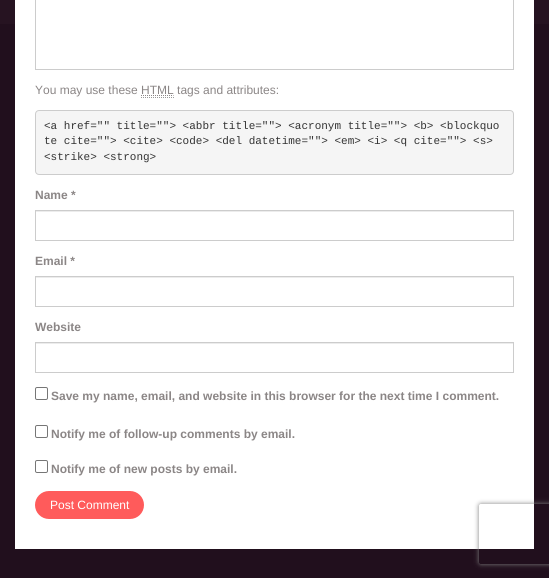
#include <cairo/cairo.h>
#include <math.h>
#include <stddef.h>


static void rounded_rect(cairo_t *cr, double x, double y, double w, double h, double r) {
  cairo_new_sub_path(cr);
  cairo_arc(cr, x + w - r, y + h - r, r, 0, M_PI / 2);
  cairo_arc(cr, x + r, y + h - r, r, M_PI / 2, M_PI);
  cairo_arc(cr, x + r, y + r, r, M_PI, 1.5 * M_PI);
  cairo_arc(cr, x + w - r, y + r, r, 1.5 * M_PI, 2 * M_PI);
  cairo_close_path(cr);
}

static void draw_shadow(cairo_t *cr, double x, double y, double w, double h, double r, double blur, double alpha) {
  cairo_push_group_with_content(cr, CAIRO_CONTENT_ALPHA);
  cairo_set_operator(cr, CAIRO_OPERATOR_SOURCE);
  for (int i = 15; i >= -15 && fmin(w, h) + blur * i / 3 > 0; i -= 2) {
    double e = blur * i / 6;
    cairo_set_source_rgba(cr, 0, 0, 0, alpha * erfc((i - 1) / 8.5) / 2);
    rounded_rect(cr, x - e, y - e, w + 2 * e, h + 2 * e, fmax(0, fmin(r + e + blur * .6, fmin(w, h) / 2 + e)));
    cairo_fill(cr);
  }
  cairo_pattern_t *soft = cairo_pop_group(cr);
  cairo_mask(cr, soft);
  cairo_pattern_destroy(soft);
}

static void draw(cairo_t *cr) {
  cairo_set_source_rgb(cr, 33 / 255.0, 15 / 255.0, 29 / 255.0);
  cairo_paint(cr);
  cairo_set_source_rgb(cr, 38 / 255.0, 19 / 255.0, 33 / 255.0);
  cairo_rectangle(cr, 0, 0, 549, 24);
  cairo_fill(cr);
  cairo_set_source_rgb(cr, 1, 1, 1);
  cairo_rectangle(cr, 15, 0, 519, 549);
  cairo_fill(cr);
  cairo_rectangle(cr, 35.5, -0.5, 478, 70);
  cairo_set_source_rgb(cr, 204 / 255.0, 204 / 255.0, 204 / 255.0);
  cairo_set_line_width(cr, 1);
  cairo_stroke(cr);
  cairo_new_path(cr);
  cairo_move_to(cr, 141, 95.5);
  cairo_line_to(cr, 173.5, 95.5);
  cairo_set_source_rgb(cr, 139 / 255.0, 134 / 255.0, 134 / 255.0);
  cairo_set_dash(cr, (double[]){1, 1}, 2, 0);
  cairo_stroke(cr);
  cairo_new_path(cr);
  cairo_move_to(cr, 141, 97.5);
  cairo_line_to(cr, 174, 97.5);
  cairo_set_source_rgb(cr, 153 / 255.0, 153 / 255.0, 153 / 255.0);
  cairo_stroke(cr);
  cairo_set_source_rgb(cr, 245 / 255.0, 245 / 255.0, 245 / 255.0);
  rounded_rect(cr, 35.5, 110.5, 478, 64, 3.5);
  cairo_fill_preserve(cr);
  cairo_set_source_rgb(cr, 204 / 255.0, 204 / 255.0, 204 / 255.0);
  cairo_set_dash(cr, NULL, 0, 0);
  cairo_stroke(cr);
  cairo_set_source_rgb(cr, 236 / 255.0, 236 / 255.0, 236 / 255.0);
  cairo_rectangle(cr, 36, 211, 477, 1);
  cairo_fill(cr);
  cairo_rectangle(cr, 35.5, 210.5, 478, 30);
  cairo_set_source_rgb(cr, 204 / 255.0, 204 / 255.0, 204 / 255.0);
  cairo_stroke(cr);
  cairo_set_source_rgb(cr, 236 / 255.0, 236 / 255.0, 236 / 255.0);
  cairo_rectangle(cr, 36, 277, 477, 1);
  cairo_fill(cr);
  cairo_rectangle(cr, 35.5, 276.5, 478, 30);
  cairo_set_source_rgb(cr, 204 / 255.0, 204 / 255.0, 204 / 255.0);
  cairo_stroke(cr);
  cairo_set_source_rgb(cr, 236 / 255.0, 236 / 255.0, 236 / 255.0);
  cairo_rectangle(cr, 36, 343, 477, 1);
  cairo_fill(cr);
  cairo_rectangle(cr, 35.5, 342.5, 478, 30);
  cairo_set_source_rgb(cr, 204 / 255.0, 204 / 255.0, 204 / 255.0);
  cairo_stroke(cr);
  rounded_rect(cr, 35.5, 387.5, 12, 12, 1.5);
  cairo_set_source_rgb(cr, 118 / 255.0, 118 / 255.0, 118 / 255.0);
  cairo_stroke(cr);
  rounded_rect(cr, 35.5, 425.5, 12, 12, 1.5);
  cairo_stroke(cr);
  rounded_rect(cr, 35.5, 460.5, 12, 12, 1.5);
  cairo_stroke(cr);
  cairo_set_source_rgb(cr, 1, 91 / 255.0, 91 / 255.0);
  rounded_rect(cr, 35, 491, 109, 28, 14);
  cairo_fill(cr);
  cairo_save(cr);
  cairo_set_fill_rule(cr, CAIRO_FILL_RULE_EVEN_ODD);
  cairo_new_path(cr);
  cairo_move_to(cr, 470, 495);
  cairo_line_to(cr, 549, 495);
  cairo_line_to(cr, 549, 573);
  cairo_line_to(cr, 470, 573);
  cairo_close_path(cr);
  cairo_move_to(cr, 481, 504);
  cairo_line_to(cr, 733, 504);
  cairo_curve_to(cr, 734, 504, 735, 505, 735, 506);
  cairo_line_to(cr, 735, 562);
  cairo_curve_to(cr, 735, 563, 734, 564, 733, 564);
  cairo_line_to(cr, 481, 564);
  cairo_curve_to(cr, 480, 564, 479, 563, 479, 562);
  cairo_line_to(cr, 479, 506);
  cairo_curve_to(cr, 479, 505, 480, 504, 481, 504);
  cairo_close_path(cr);
  cairo_clip(cr);
  cairo_set_source_rgb(cr, 128 / 255.0, 128 / 255.0, 128 / 255.0);
  draw_shadow(cr, 479, 504, 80, 60, 2, 2.5, 1);
  cairo_restore(cr);
  cairo_select_font_face(cr, "Liberation Sans", CAIRO_FONT_SLANT_NORMAL, CAIRO_FONT_WEIGHT_NORMAL);
  cairo_set_font_size(cr, 12);
  cairo_set_source_rgb(cr, 139 / 255.0, 134 / 255.0, 134 / 255.0);
  cairo_move_to(cr, 35, 94);
  cairo_show_text(cr, "You may use these HTML tags and attributes:");
  cairo_select_font_face(cr, "Liberation Mono", CAIRO_FONT_SLANT_NORMAL, CAIRO_FONT_WEIGHT_NORMAL);
  cairo_set_font_size(cr, 11);
  cairo_set_source_rgb(cr, 51 / 255.0, 51 / 255.0, 51 / 255.0);
  cairo_move_to(cr, 44, 129);
  cairo_show_text(cr, "<a href=\"\" title=\"\"> <abbr title=\"\"> <acronym title=\"\"> <b> <blockquo");
  cairo_move_to(cr, 44, 144);
  cairo_show_text(cr, "te cite=\"\"> <cite> <code> <del datetime=\"\"> <em> <i> <q cite=\"\"> <s>");
  cairo_move_to(cr, 44, 160);
  cairo_show_text(cr, "<strike> <strong>");
  cairo_select_font_face(cr, "Liberation Sans", CAIRO_FONT_SLANT_NORMAL, CAIRO_FONT_WEIGHT_BOLD);
  cairo_set_font_size(cr, 12);
  cairo_set_source_rgb(cr, 139 / 255.0, 134 / 255.0, 134 / 255.0);
  cairo_move_to(cr, 35, 199);
  cairo_show_text(cr, "Name *");
  cairo_move_to(cr, 35, 265);
  cairo_show_text(cr, "Email *");
  cairo_move_to(cr, 35, 331);
  cairo_show_text(cr, "Website");
  cairo_move_to(cr, 51, 400);
  cairo_show_text(cr, "Save my name, email, and website in this browser for the next time I comment.");
  cairo_move_to(cr, 51, 438);
  cairo_show_text(cr, "Notify me of follow-up comments by email.");
  cairo_move_to(cr, 51, 473);
  cairo_show_text(cr, "Notify me of new posts by email.");
  cairo_select_font_face(cr, "Liberation Sans", CAIRO_FONT_SLANT_NORMAL, CAIRO_FONT_WEIGHT_NORMAL);
  cairo_set_source_rgb(cr, 1, 1, 1);
  cairo_move_to(cr, 50, 509);
  cairo_show_text(cr, "Post Comment");
}

int main(void) {
  cairo_surface_t *surface = cairo_image_surface_create(CAIRO_FORMAT_RGB24, 549, 578);
  cairo_t *cr = cairo_create(surface);
  cairo_font_options_t *options = cairo_font_options_create();
  cairo_font_options_set_hint_metrics(options, CAIRO_HINT_METRICS_OFF);
  cairo_font_options_set_hint_style(options, CAIRO_HINT_STYLE_NONE);
  cairo_set_font_options(cr, options);
  cairo_set_miter_limit(cr, 4);
  draw(cr);
  cairo_surface_write_to_png(surface, "out.png");
  cairo_font_options_destroy(options);
  cairo_destroy(cr);
  cairo_surface_destroy(surface);
  return 0;
}
